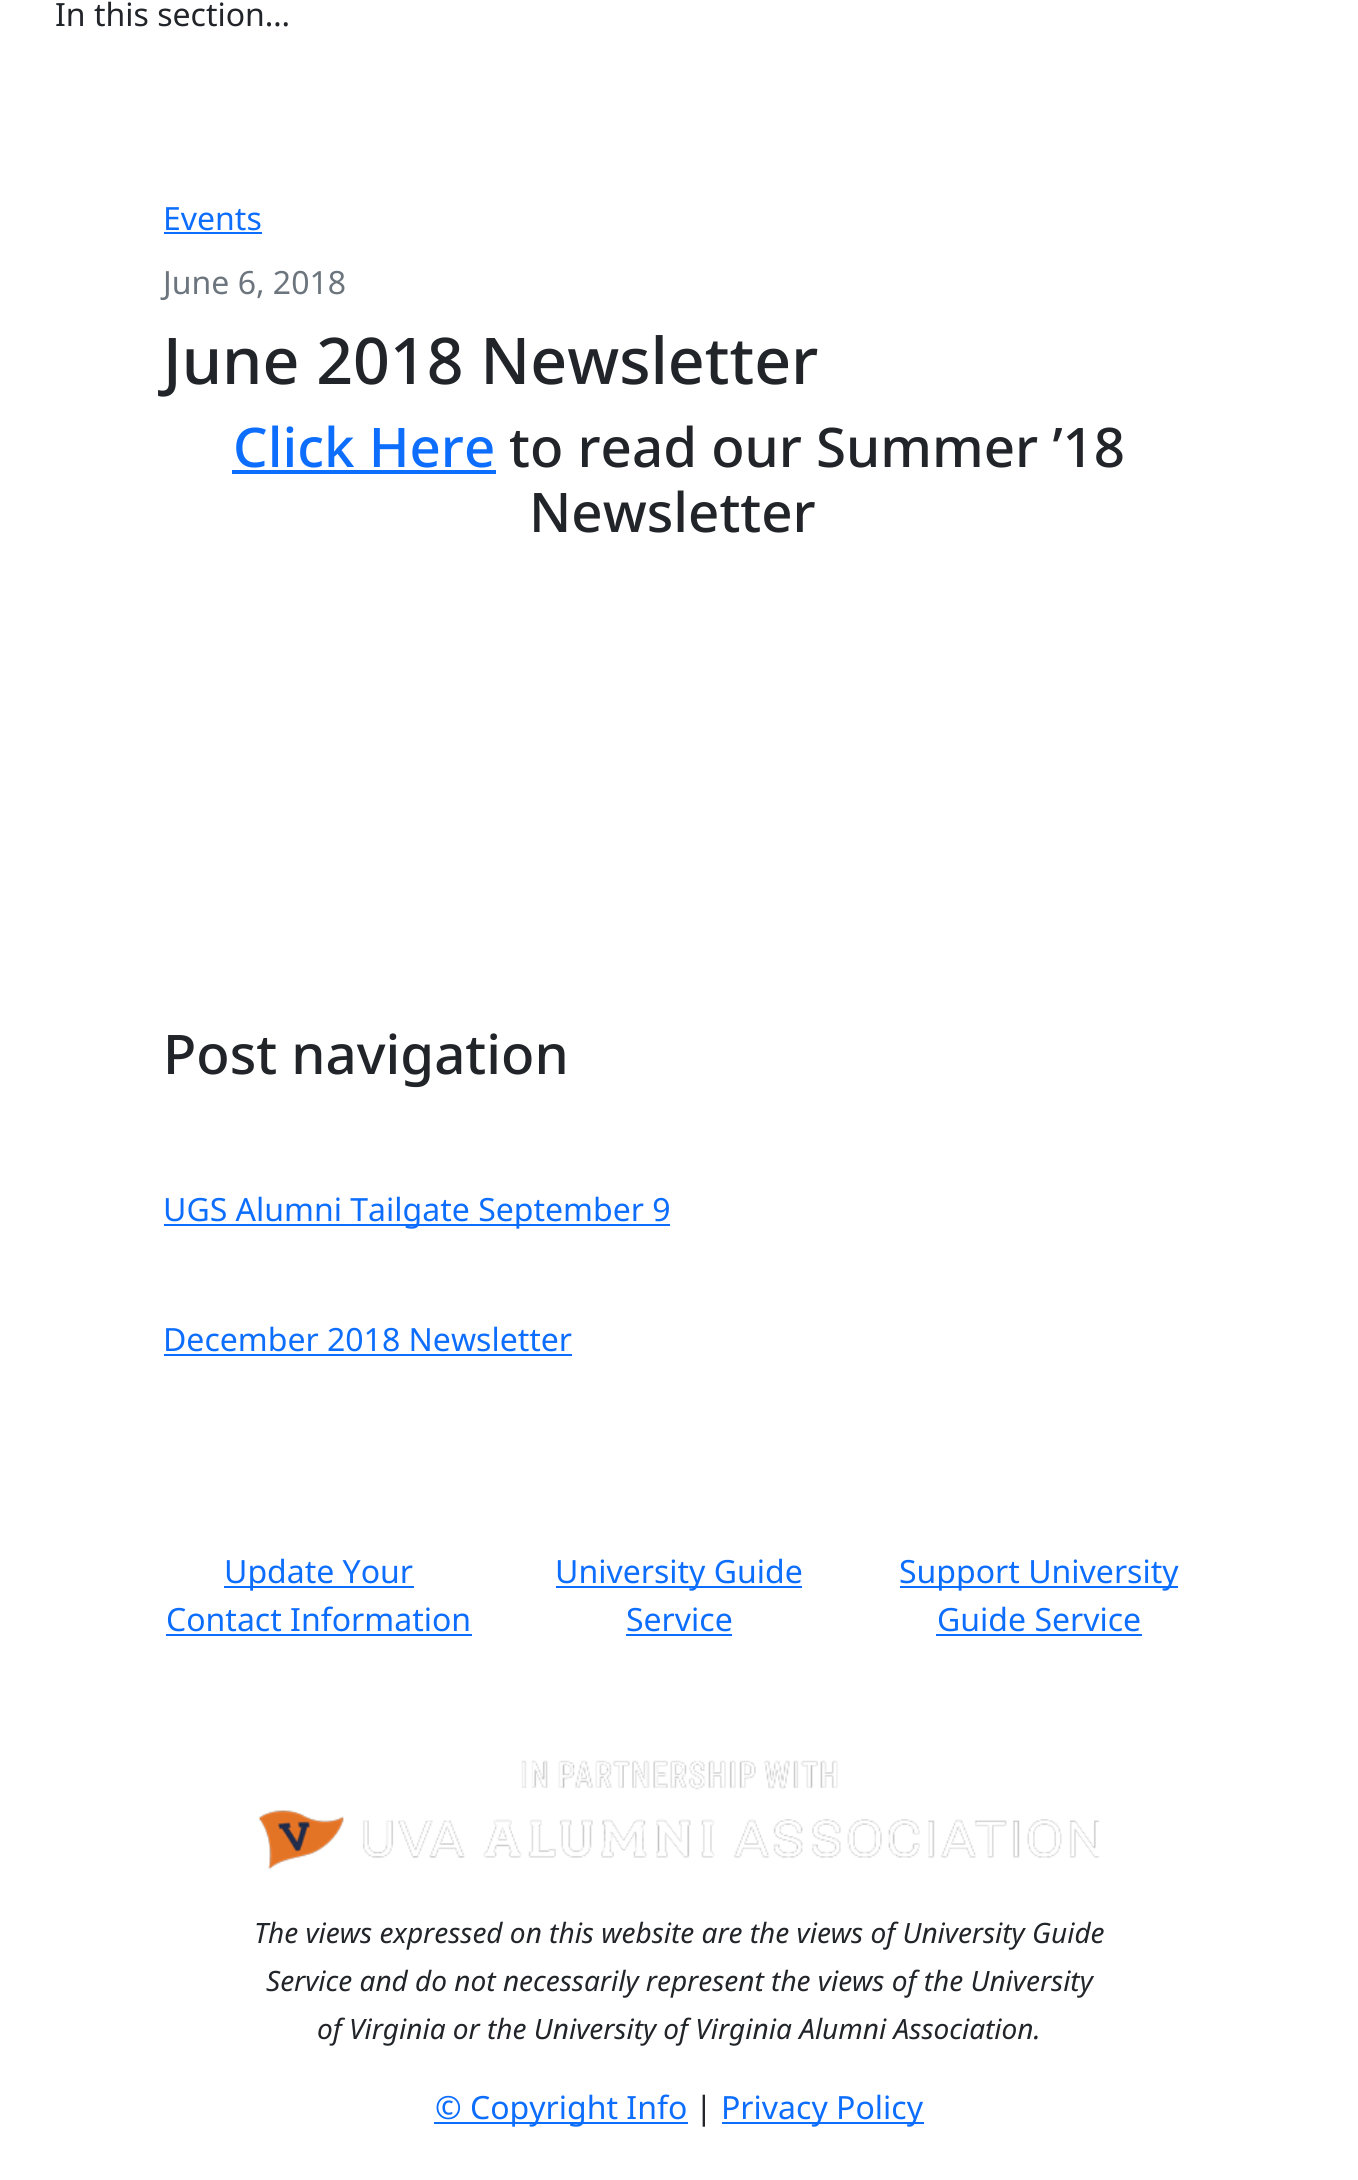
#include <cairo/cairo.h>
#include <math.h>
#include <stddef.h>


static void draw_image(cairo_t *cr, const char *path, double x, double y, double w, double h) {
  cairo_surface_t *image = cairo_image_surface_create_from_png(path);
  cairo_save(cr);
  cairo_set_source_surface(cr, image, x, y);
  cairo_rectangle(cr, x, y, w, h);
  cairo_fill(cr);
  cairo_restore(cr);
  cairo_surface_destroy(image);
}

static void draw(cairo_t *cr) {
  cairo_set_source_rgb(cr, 1, 1, 1);
  cairo_paint(cr);
  cairo_set_source_rgb(cr, 13 / 255.0, 110 / 255.0, 253 / 255.0);
  cairo_rectangle(cr, 164, 232, 98, 2);
  cairo_fill(cr);
  cairo_rectangle(cr, 232, 470, 264, 4);
  cairo_fill(cr);
  cairo_rectangle(cr, 164, 1224, 506, 2);
  cairo_fill(cr);
  cairo_rectangle(cr, 164, 1354, 408, 2);
  cairo_fill(cr);
  cairo_rectangle(cr, 224, 1586, 190, 2);
  cairo_fill(cr);
  cairo_rectangle(cr, 166, 1634, 306, 2);
  cairo_fill(cr);
  cairo_rectangle(cr, 556, 1586, 246, 2);
  cairo_fill(cr);
  cairo_rectangle(cr, 626, 1634, 106, 2);
  cairo_fill(cr);
  cairo_rectangle(cr, 900, 1586, 278, 2);
  cairo_fill(cr);
  cairo_rectangle(cr, 936, 1634, 206, 2);
  cairo_fill(cr);
  draw_image(cr, "images/1.png", 258, 1760, 842, 110);
  cairo_rectangle(cr, 434, 2122, 254, 2);
  cairo_fill(cr);
  cairo_rectangle(cr, 722, 2122, 202, 2);
  cairo_fill(cr);
  cairo_select_font_face(cr, "Noto Sans", CAIRO_FONT_SLANT_NORMAL, CAIRO_FONT_WEIGHT_NORMAL);
  cairo_set_font_size(cr, 32);
  cairo_set_source_rgb(cr, 33 / 255.0, 37 / 255.0, 41 / 255.0);
  cairo_move_to(cr, 55, 26);
  cairo_show_text(cr, "In this section…");
  cairo_set_source_rgb(cr, 13 / 255.0, 110 / 255.0, 253 / 255.0);
  cairo_move_to(cr, 163, 230);
  cairo_show_text(cr, "Events");
  cairo_set_source_rgb(cr, 108 / 255.0, 117 / 255.0, 125 / 255.0);
  cairo_move_to(cr, 163, 294);
  cairo_show_text(cr, "June 6, 2018");
  cairo_select_font_face(cr, "Noto Sans Medium", CAIRO_FONT_SLANT_NORMAL, CAIRO_FONT_WEIGHT_NORMAL);
  cairo_set_font_size(cr, 64.4);
  cairo_set_source_rgb(cr, 33 / 255.0, 37 / 255.0, 41 / 255.0);
  cairo_move_to(cr, 163, 384);
  cairo_show_text(cr, "June 2018 Newsletter");
  cairo_set_font_size(cr, 54.6);
  cairo_set_source_rgb(cr, 13 / 255.0, 110 / 255.0, 253 / 255.0);
  cairo_move_to(cr, 233, 467);
  cairo_show_text(cr, "Click Here");
  cairo_set_source_rgb(cr, 33 / 255.0, 37 / 255.0, 41 / 255.0);
  cairo_move_to(cr, 509, 467);
  cairo_show_text(cr, "to read our Summer ’18");
  cairo_move_to(cr, 529, 532);
  cairo_show_text(cr, "Newsletter");
  cairo_move_to(cr, 163, 1074);
  cairo_show_text(cr, "Post navigation");
  cairo_select_font_face(cr, "Noto Sans", CAIRO_FONT_SLANT_NORMAL, CAIRO_FONT_WEIGHT_NORMAL);
  cairo_set_font_size(cr, 32);
  cairo_set_source_rgb(cr, 13 / 255.0, 110 / 255.0, 253 / 255.0);
  cairo_move_to(cr, 163, 1221);
  cairo_show_text(cr, "UGS Alumni Tailgate September 9");
  cairo_move_to(cr, 163, 1351);
  cairo_show_text(cr, "December 2018 Newsletter");
  cairo_move_to(cr, 224, 1583);
  cairo_show_text(cr, "Update Your");
  cairo_move_to(cr, 166, 1631);
  cairo_show_text(cr, "Contact Information");
  cairo_move_to(cr, 555, 1583);
  cairo_show_text(cr, "University Guide");
  cairo_move_to(cr, 626, 1631);
  cairo_show_text(cr, "Service");
  cairo_move_to(cr, 899, 1583);
  cairo_show_text(cr, "Support University");
  cairo_move_to(cr, 937, 1631);
  cairo_show_text(cr, "Guide Service");
  cairo_select_font_face(cr, "Noto Sans", CAIRO_FONT_SLANT_ITALIC, CAIRO_FONT_WEIGHT_NORMAL);
  cairo_set_font_size(cr, 28);
  cairo_set_source_rgb(cr, 33 / 255.0, 37 / 255.0, 41 / 255.0);
  cairo_move_to(cr, 254, 1943);
  cairo_show_text(cr, "The views expressed on this website are the views of University Guide");
  cairo_move_to(cr, 266, 1991);
  cairo_show_text(cr, "Service and do not necessarily represent the views of the University");
  cairo_move_to(cr, 317, 2039);
  cairo_show_text(cr, "of Virginia or the University of Virginia Alumni Association.");
  cairo_select_font_face(cr, "Noto Sans", CAIRO_FONT_SLANT_NORMAL, CAIRO_FONT_WEIGHT_NORMAL);
  cairo_set_font_size(cr, 32);
  cairo_set_source_rgb(cr, 13 / 255.0, 110 / 255.0, 253 / 255.0);
  cairo_move_to(cr, 435, 2119);
  cairo_show_text(cr, "© Copyright Info");
  cairo_set_source_rgb(cr, 33 / 255.0, 37 / 255.0, 41 / 255.0);
  cairo_move_to(cr, 695, 2119);
  cairo_show_text(cr, "|");
  cairo_set_source_rgb(cr, 13 / 255.0, 110 / 255.0, 253 / 255.0);
  cairo_move_to(cr, 721, 2119);
  cairo_show_text(cr, "Privacy Policy");
}

int main(void) {
  cairo_surface_t *surface = cairo_image_surface_create(CAIRO_FORMAT_RGB24, 1358, 2180);
  cairo_t *cr = cairo_create(surface);
  cairo_font_options_t *options = cairo_font_options_create();
  cairo_font_options_set_hint_metrics(options, CAIRO_HINT_METRICS_OFF);
  cairo_font_options_set_hint_style(options, CAIRO_HINT_STYLE_NONE);
  cairo_set_font_options(cr, options);
  cairo_set_miter_limit(cr, 4);
  draw(cr);
  cairo_surface_write_to_png(surface, "out.png");
  cairo_font_options_destroy(options);
  cairo_destroy(cr);
  cairo_surface_destroy(surface);
  return 0;
}
